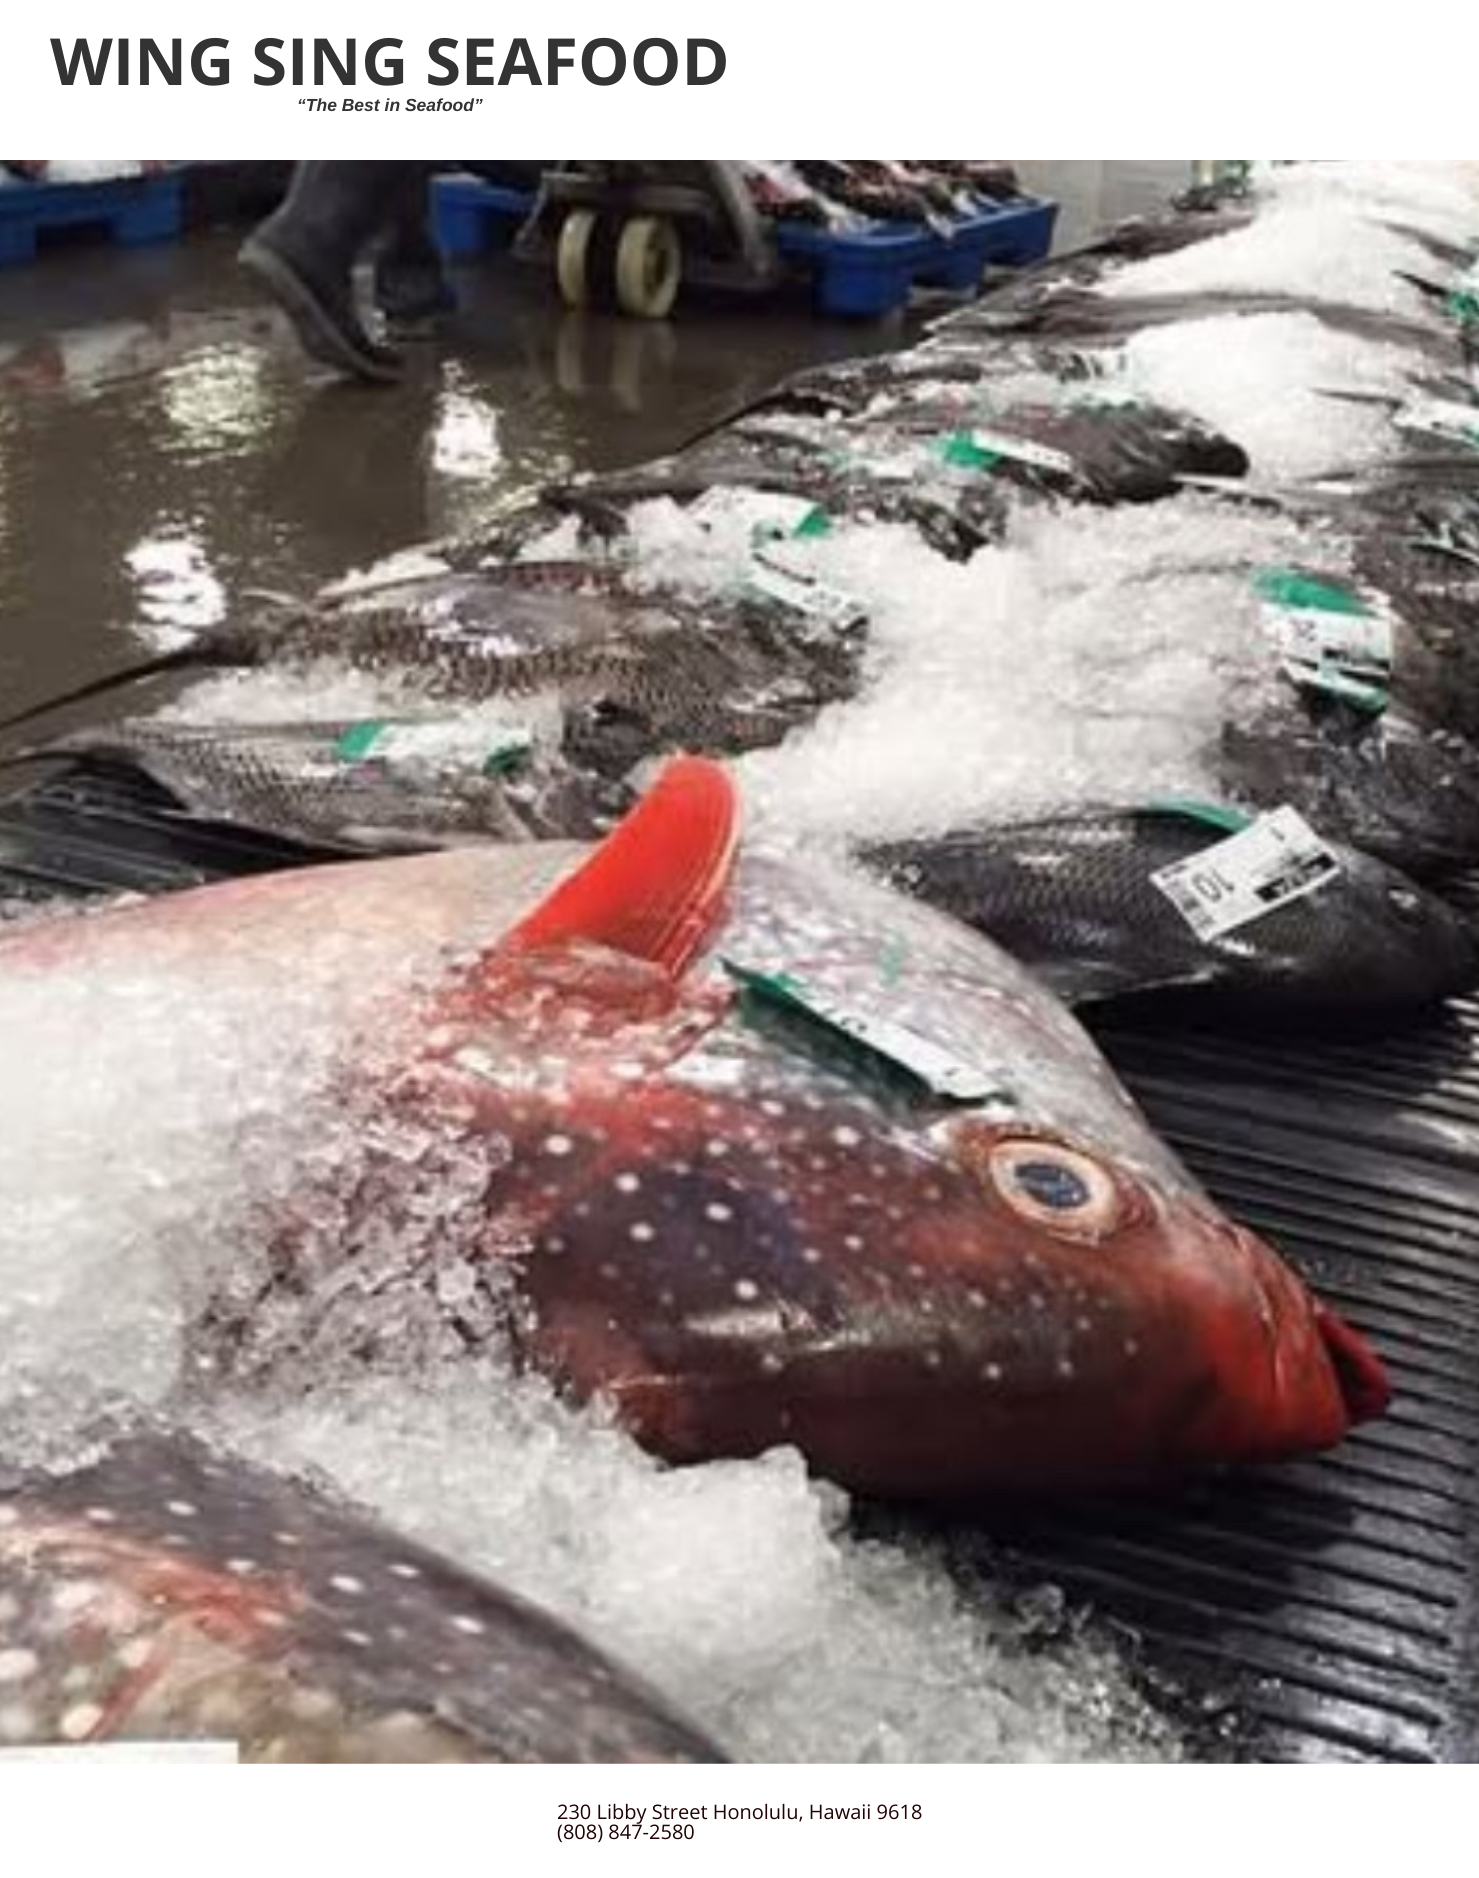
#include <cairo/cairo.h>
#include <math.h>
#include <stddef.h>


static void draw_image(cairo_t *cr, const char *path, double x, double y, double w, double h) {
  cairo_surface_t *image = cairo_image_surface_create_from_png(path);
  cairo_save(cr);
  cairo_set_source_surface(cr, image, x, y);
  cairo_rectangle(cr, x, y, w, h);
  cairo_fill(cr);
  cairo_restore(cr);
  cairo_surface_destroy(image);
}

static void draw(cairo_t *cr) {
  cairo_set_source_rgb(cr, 1, 1, 1);
  cairo_paint(cr);
  draw_image(cr, "images/1.png", 0, 160, 1479, 1604);
  cairo_select_font_face(cr, "Open Sans", CAIRO_FONT_SLANT_NORMAL, CAIRO_FONT_WEIGHT_BOLD);
  cairo_set_font_size(cr, 65);
  cairo_set_source_rgb(cr, 51 / 255.0, 51 / 255.0, 51 / 255.0);
  cairo_move_to(cr, 50, 85);
  cairo_show_text(cr, "WING SING SEAFOOD");
  cairo_select_font_face(cr, "Liberation Sans", CAIRO_FONT_SLANT_ITALIC, CAIRO_FONT_WEIGHT_BOLD);
  cairo_set_font_size(cr, 17.5);
  cairo_move_to(cr, 297, 111);
  cairo_show_text(cr, "“The Best in Seafood”");
  cairo_select_font_face(cr, "Open Sans", CAIRO_FONT_SLANT_NORMAL, CAIRO_FONT_WEIGHT_NORMAL);
  cairo_set_font_size(cr, 20);
  cairo_set_source_rgb(cr, 32 / 255.0, 3 / 255.0, 3 / 255.0);
  cairo_move_to(cr, 557, 1819);
  cairo_show_text(cr, "230 Libby Street Honolulu, Hawaii 9618");
  cairo_move_to(cr, 557, 1839);
  cairo_show_text(cr, "(808) 847-2580");
}

int main(void) {
  cairo_surface_t *surface = cairo_image_surface_create(CAIRO_FORMAT_RGB24, 1479, 1878);
  cairo_t *cr = cairo_create(surface);
  cairo_font_options_t *options = cairo_font_options_create();
  cairo_font_options_set_hint_metrics(options, CAIRO_HINT_METRICS_OFF);
  cairo_font_options_set_hint_style(options, CAIRO_HINT_STYLE_NONE);
  cairo_set_font_options(cr, options);
  cairo_set_miter_limit(cr, 4);
  draw(cr);
  cairo_surface_write_to_png(surface, "out.png");
  cairo_font_options_destroy(options);
  cairo_destroy(cr);
  cairo_surface_destroy(surface);
  return 0;
}
